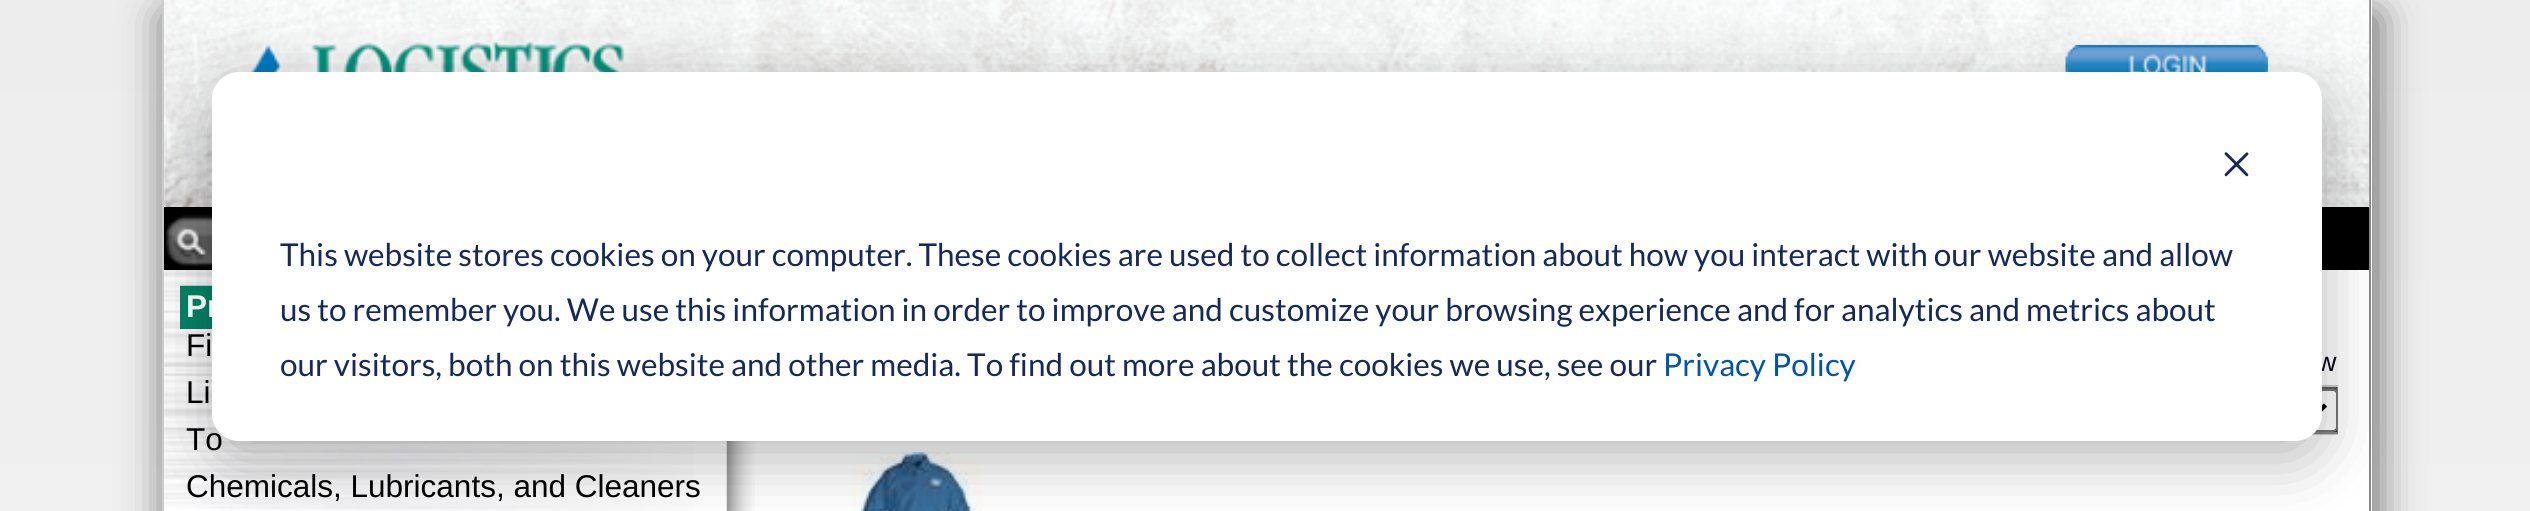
#include <cairo/cairo.h>
#include <math.h>
#include <stddef.h>


static void rounded_rect(cairo_t *cr, double x, double y, double w, double h, double r) {
  cairo_new_sub_path(cr);
  cairo_arc(cr, x + w - r, y + h - r, r, 0, M_PI / 2);
  cairo_arc(cr, x + r, y + h - r, r, M_PI / 2, M_PI);
  cairo_arc(cr, x + r, y + r, r, M_PI, 1.5 * M_PI);
  cairo_arc(cr, x + w - r, y + r, r, 1.5 * M_PI, 2 * M_PI);
  cairo_close_path(cr);
}

static void draw_shadow(cairo_t *cr, double x, double y, double w, double h, double r, double blur, double alpha) {
  cairo_push_group_with_content(cr, CAIRO_CONTENT_ALPHA);
  cairo_set_operator(cr, CAIRO_OPERATOR_SOURCE);
  for (int i = 15; i >= -15 && fmin(w, h) + blur * i / 3 > 0; i -= 2) {
    double e = blur * i / 6;
    cairo_set_source_rgba(cr, 0, 0, 0, alpha * erfc((i - 1) / 8.5) / 2);
    rounded_rect(cr, x - e, y - e, w + 2 * e, h + 2 * e, fmax(0, fmin(r + e + blur * .6, fmin(w, h) / 2 + e)));
    cairo_fill(cr);
  }
  cairo_pattern_t *soft = cairo_pop_group(cr);
  cairo_mask(cr, soft);
  cairo_pattern_destroy(soft);
}

static void draw_image(cairo_t *cr, const char *path, double x, double y, double w, double h) {
  cairo_surface_t *image = cairo_image_surface_create_from_png(path);
  cairo_save(cr);
  cairo_set_source_surface(cr, image, x, y);
  cairo_rectangle(cr, x, y, w, h);
  cairo_fill(cr);
  cairo_restore(cr);
  cairo_surface_destroy(image);
}

static void draw(cairo_t *cr) {
  cairo_pattern_t *gradient;
  cairo_set_source_rgb(cr, 1, 1, 1);
  cairo_paint(cr);
  gradient = cairo_pattern_create_linear(1266, 0, 1266, 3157);
  cairo_pattern_add_color_stop_rgba(gradient, 0, 237 / 255.0, 237 / 255.0, 237 / 255.0, 1);
  cairo_pattern_add_color_stop_rgba(gradient, 0.53, 246 / 255.0, 246 / 255.0, 246 / 255.0, 1);
  cairo_pattern_add_color_stop_rgba(gradient, 1, 1, 1, 1, 1);
  cairo_set_source(cr, gradient);
  cairo_pattern_destroy(gradient);
  cairo_rectangle(cr, 0, 0, 2530, 511);
  cairo_fill(cr);
  cairo_set_source_rgb(cr, 50 / 255.0, 50 / 255.0, 50 / 255.0);
  draw_shadow(cr, 167, 16, 2209, 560, 0, 21.5, 0.75);
  cairo_set_source_rgb(cr, 1, 1, 1);
  cairo_rectangle(cr, 164, 0, 2208, 511);
  cairo_fill(cr);
  cairo_set_source_rgb(cr, 136 / 255.0, 136 / 255.0, 136 / 255.0);
  cairo_rectangle(cr, 2369, 0, 2, 511);
  cairo_fill(cr);
  cairo_set_source_rgb(cr, 204 / 255.0, 204 / 255.0, 204 / 255.0);
  cairo_rectangle(cr, 162, 0, 2, 511);
  cairo_fill(cr);
  draw_image(cr, "images/2.png", 164, 0, 2206, 207);
  draw_image(cr, "images/3.png", 220, 29, 429, 51);
  draw_image(cr, "images/4.png", 2065, 45, 203, 27);
  cairo_set_source_rgb(cr, 0, 0, 0);
  cairo_rectangle(cr, 164, 207, 2205, 63);
  cairo_fill(cr);
  draw_image(cr, "images/5.png", 166, 214, 46, 52);
  draw_image(cr, "images/6.png", 164, 270, 529, 241);
  cairo_set_source_rgb(cr, 0, 131 / 255.0, 103 / 255.0);
  cairo_rectangle(cr, 180, 328, 32, 1);
  cairo_fill(cr);
  draw_image(cr, "images/7.png", 180, 285, 32, 44);
  draw_image(cr, "images/8.png", 726, 441, 29, 70);
  draw_image(cr, "images/9.png", 2312, 387, 26, 48);
  cairo_set_source_rgb(cr, 204 / 255.0, 204 / 255.0, 204 / 255.0);
  cairo_rectangle(cr, 2322, 385, 16, 2);
  cairo_fill(cr);
  cairo_set_source_rgb(cr, 136 / 255.0, 136 / 255.0, 136 / 255.0);
  cairo_rectangle(cr, 2313, 432, 25, 2);
  cairo_fill(cr);
  cairo_set_source_rgb(cr, 1, 1, 1);
  rounded_rect(cr, 2064, 390, 273, 41, 4);
  cairo_fill_preserve(cr);
  cairo_set_source_rgb(cr, 118 / 255.0, 118 / 255.0, 118 / 255.0);
  cairo_stroke(cr);
  cairo_new_path(cr);
  cairo_move_to(cr, 2307.5, 405);
  cairo_line_to(cr, 2316.5, 414);
  cairo_line_to(cr, 2325.5, 405);
  cairo_set_source_rgb(cr, 0, 0, 0);
  cairo_set_line_width(cr, 4.5);
  cairo_stroke(cr);
  draw_image(cr, "images/10.png", 850, 452, 133, 59);
  cairo_set_source_rgb(cr, 0, 0, 0);
  draw_shadow(cr, 212, 90, 2110, 369, 27, 31.5, 0.28);
  cairo_select_font_face(cr, "Liberation Sans", CAIRO_FONT_SLANT_NORMAL, CAIRO_FONT_WEIGHT_BOLD);
  cairo_set_font_size(cr, 31.5);
  cairo_set_source_rgb(cr, 238 / 255.0, 238 / 255.0, 238 / 255.0);
  cairo_move_to(cr, 186, 317);
  cairo_show_text(cr, "Pr");
  cairo_select_font_face(cr, "Liberation Sans", CAIRO_FONT_SLANT_NORMAL, CAIRO_FONT_WEIGHT_NORMAL);
  cairo_set_source_rgb(cr, 0, 0, 0);
  cairo_move_to(cr, 186, 356);
  cairo_show_text(cr, "Fi");
  cairo_move_to(cr, 186, 403);
  cairo_show_text(cr, "Li");
  cairo_move_to(cr, 186, 450);
  cairo_show_text(cr, "To");
  cairo_move_to(cr, 186, 497);
  cairo_show_text(cr, "Chemicals, Lubricants, and Cleaners");
  cairo_set_font_size(cr, 27);
  cairo_set_source_rgb(cr, 6 / 255.0, 1 / 255.0, 22 / 255.0);
  cairo_move_to(cr, 2317, 371);
  cairo_show_text(cr, "w");
  cairo_set_source_rgb(cr, 1, 1, 1);
  rounded_rect(cr, 212, 72, 2110, 369, 27);
  cairo_fill(cr);
  draw_image(cr, "images/1.png", 2224, 152, 25, 25);
  cairo_select_font_face(cr, "Lato", CAIRO_FONT_SLANT_NORMAL, CAIRO_FONT_WEIGHT_NORMAL);
  cairo_set_font_size(cr, 31.5);
  cairo_set_source_rgb(cr, 0, 83 / 255.0, 174 / 255.0);
  cairo_move_to(cr, 1663, 376);
  cairo_show_text(cr, "Privacy Policy");
  cairo_set_source_rgb(cr, 21 / 255.0, 41 / 255.0, 90 / 255.0);
  cairo_move_to(cr, 280, 376);
  cairo_show_text(cr, "our visitors, both on this website and other media. To find out more about the cookies we use, see our");
  cairo_move_to(cr, 280, 321);
  cairo_show_text(cr, "us to remember you. We use this information in order to improve and customize your browsing experience and for analytics and metrics about");
  cairo_move_to(cr, 280, 266);
  cairo_show_text(cr, "This website stores cookies on your computer. These cookies are used to collect information about how you interact with our website and allow");
}

int main(void) {
  cairo_surface_t *surface = cairo_image_surface_create(CAIRO_FORMAT_RGB24, 2530, 511);
  cairo_t *cr = cairo_create(surface);
  cairo_font_options_t *options = cairo_font_options_create();
  cairo_font_options_set_hint_metrics(options, CAIRO_HINT_METRICS_OFF);
  cairo_font_options_set_hint_style(options, CAIRO_HINT_STYLE_NONE);
  cairo_set_font_options(cr, options);
  cairo_set_miter_limit(cr, 4);
  draw(cr);
  cairo_surface_write_to_png(surface, "out.png");
  cairo_font_options_destroy(options);
  cairo_destroy(cr);
  cairo_surface_destroy(surface);
  return 0;
}
